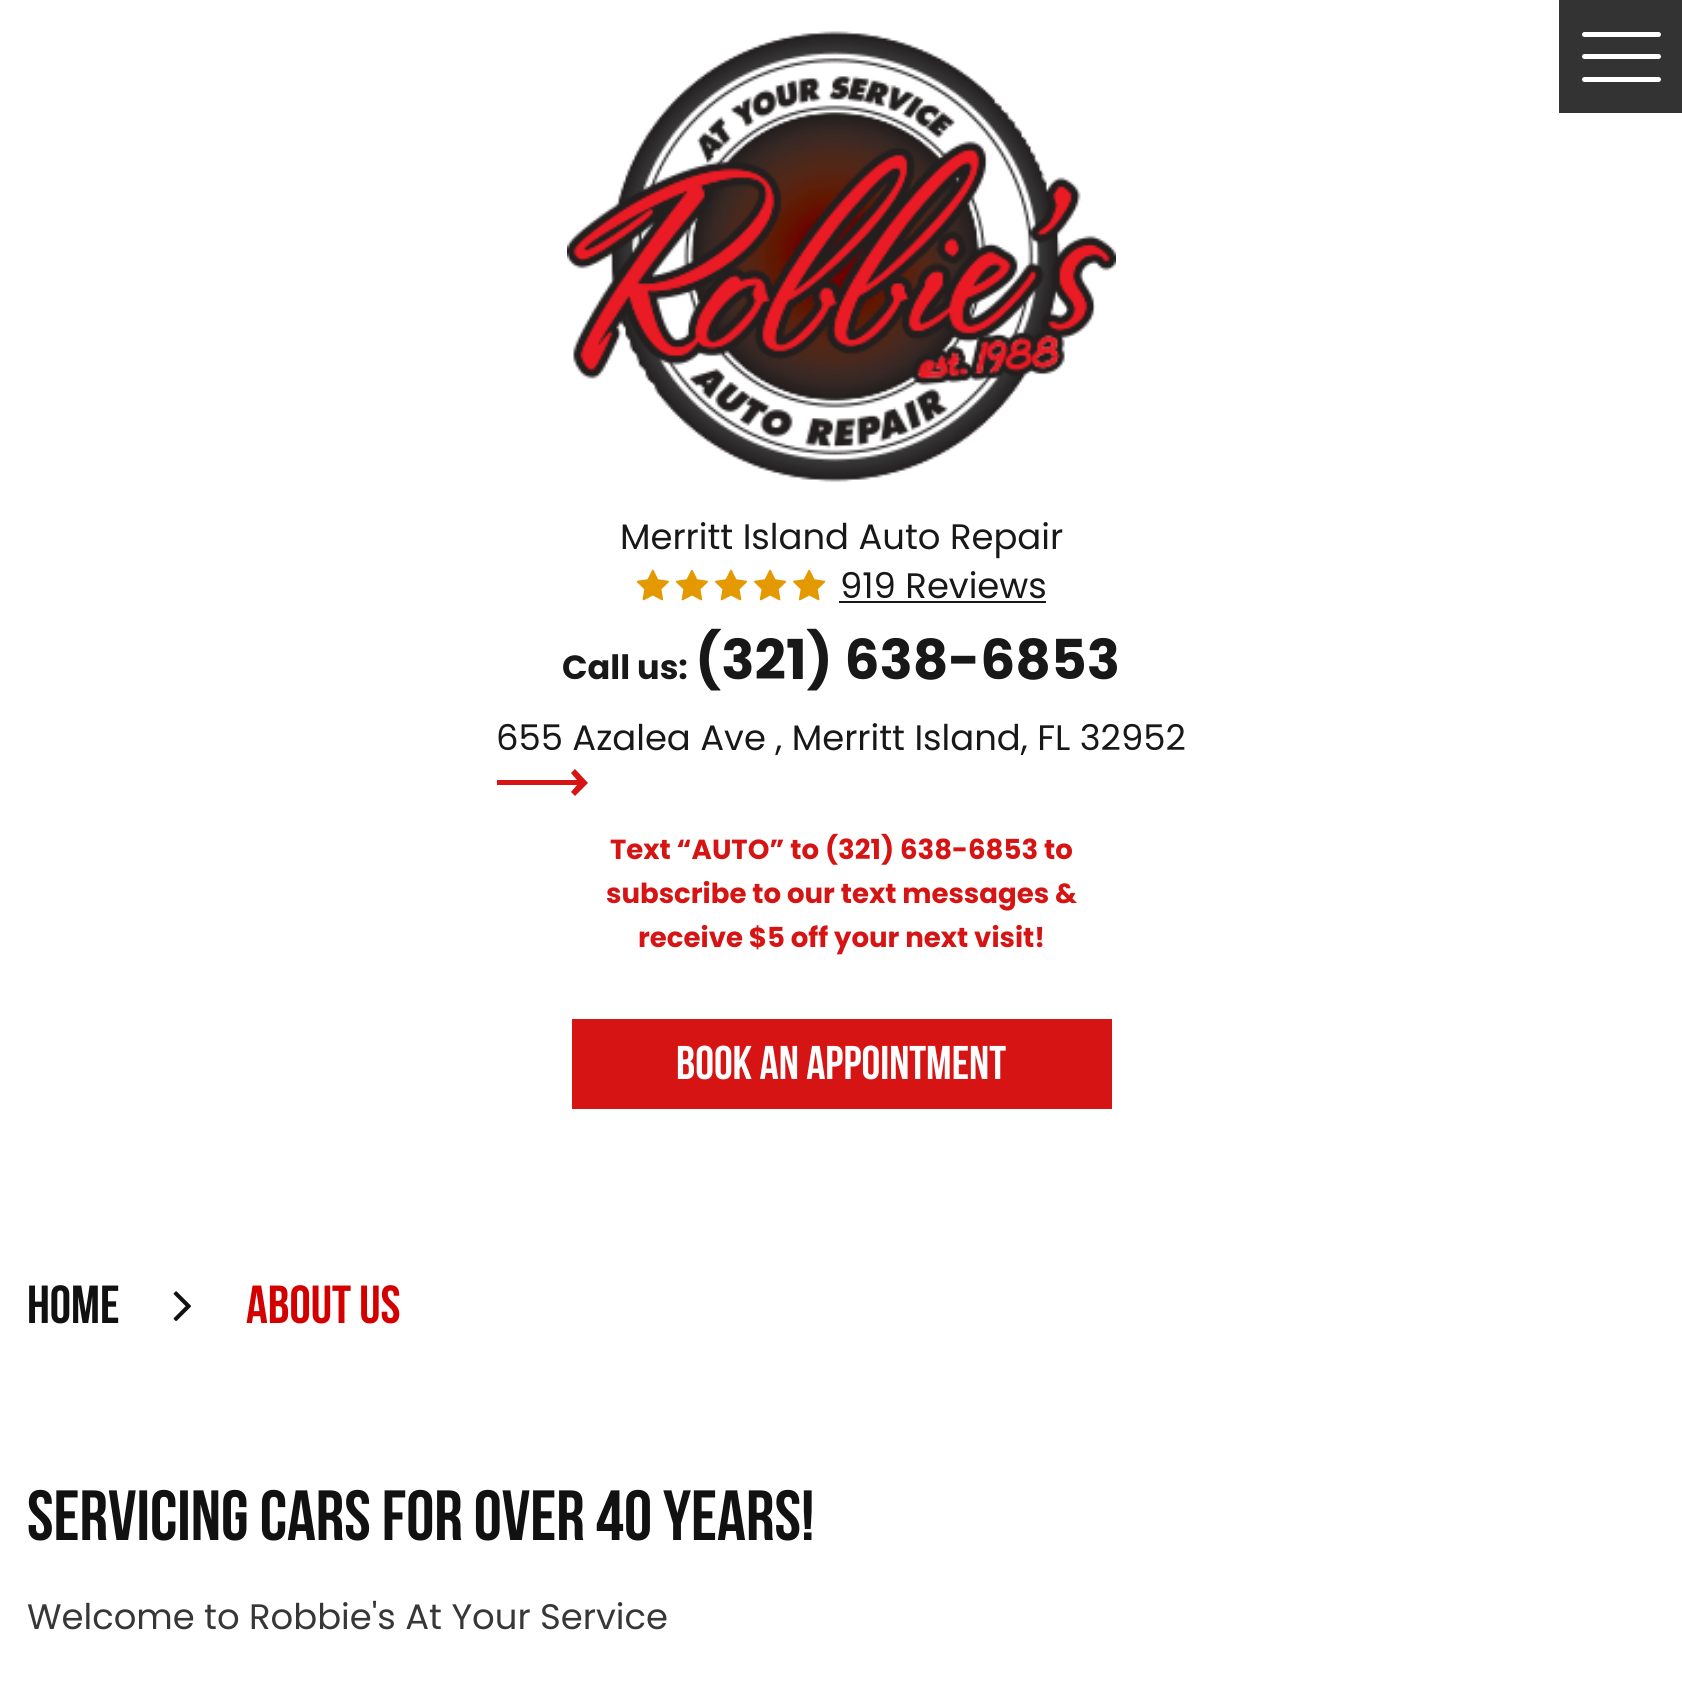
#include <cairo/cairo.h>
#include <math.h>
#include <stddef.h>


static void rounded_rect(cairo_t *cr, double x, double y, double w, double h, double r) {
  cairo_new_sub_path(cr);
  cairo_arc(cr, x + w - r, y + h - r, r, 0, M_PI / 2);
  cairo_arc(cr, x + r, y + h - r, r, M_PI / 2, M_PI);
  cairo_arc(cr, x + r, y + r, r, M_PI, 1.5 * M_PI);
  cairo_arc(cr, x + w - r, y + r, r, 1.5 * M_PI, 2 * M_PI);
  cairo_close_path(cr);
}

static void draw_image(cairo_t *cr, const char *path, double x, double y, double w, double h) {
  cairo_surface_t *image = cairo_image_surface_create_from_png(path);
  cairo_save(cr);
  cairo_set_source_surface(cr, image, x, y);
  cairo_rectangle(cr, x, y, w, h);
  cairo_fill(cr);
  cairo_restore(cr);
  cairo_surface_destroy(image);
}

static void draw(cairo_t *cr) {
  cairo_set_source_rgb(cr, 1, 1, 1);
  cairo_paint(cr);
  cairo_set_source_rgb(cr, 51 / 255.0, 51 / 255.0, 51 / 255.0);
  cairo_rectangle(cr, 1559, 0, 123, 113);
  cairo_fill(cr);
  cairo_set_source_rgb(cr, 1, 1, 1);
  rounded_rect(cr, 1582, 54, 79, 5, 2.5);
  cairo_fill(cr);
  rounded_rect(cr, 1582, 32, 79, 5, 2.5);
  cairo_fill(cr);
  rounded_rect(cr, 1582, 77, 79, 5, 2.5);
  cairo_fill(cr);
  draw_image(cr, "images/1.png", 567, 31, 549, 451);
  draw_image(cr, "images/2.png", 636, 569, 190, 32);
  cairo_set_source_rgb(cr, 24 / 255.0, 24 / 255.0, 24 / 255.0);
  cairo_rectangle(cr, 839, 601, 207, 2);
  cairo_fill(cr);
  cairo_set_source_rgb(cr, 214 / 255.0, 20 / 255.0, 20 / 255.0);
  cairo_new_path(cr);
  cairo_move_to(cr, 575, 796);
  cairo_line_to(cr, 571, 792);
  cairo_line_to(cr, 577, 785);
  cairo_line_to(cr, 497, 785);
  cairo_line_to(cr, 497, 780);
  cairo_line_to(cr, 577, 780);
  cairo_line_to(cr, 571, 773);
  cairo_line_to(cr, 575, 769);
  cairo_line_to(cr, 588, 783);
  cairo_close_path(cr);
  cairo_fill(cr);
  cairo_rectangle(cr, 572, 1019, 540, 90);
  cairo_fill(cr);
  draw_image(cr, "images/3.png", 173, 1291, 18, 30);
  cairo_select_font_face(cr, "Poppins", CAIRO_FONT_SLANT_NORMAL, CAIRO_FONT_WEIGHT_NORMAL);
  cairo_set_font_size(cr, 35.4);
  cairo_set_source_rgb(cr, 24 / 255.0, 24 / 255.0, 24 / 255.0);
  cairo_move_to(cr, 620, 549);
  cairo_show_text(cr, "Merritt Island Auto Repair");
  cairo_move_to(cr, 840, 598);
  cairo_show_text(cr, "919 Reviews");
  cairo_select_font_face(cr, "Poppins", CAIRO_FONT_SLANT_NORMAL, CAIRO_FONT_WEIGHT_BOLD);
  cairo_set_font_size(cr, 33.5);
  cairo_move_to(cr, 562, 679);
  cairo_show_text(cr, "Call us:");
  cairo_set_font_size(cr, 55);
  cairo_move_to(cr, 695, 679);
  cairo_show_text(cr, "(321) 638-6853");
  cairo_select_font_face(cr, "Poppins", CAIRO_FONT_SLANT_NORMAL, CAIRO_FONT_WEIGHT_NORMAL);
  cairo_set_font_size(cr, 35.4);
  cairo_move_to(cr, 496, 750);
  cairo_show_text(cr, "655 Azalea Ave , Merritt Island, FL 32952");
  cairo_select_font_face(cr, "Poppins", CAIRO_FONT_SLANT_NORMAL, CAIRO_FONT_WEIGHT_BOLD);
  cairo_set_font_size(cr, 27.6);
  cairo_set_source_rgb(cr, 214 / 255.0, 20 / 255.0, 20 / 255.0);
  cairo_move_to(cr, 610, 859);
  cairo_show_text(cr, "Text “AUTO” to (321) 638-6853 to");
  cairo_move_to(cr, 606, 903);
  cairo_show_text(cr, "subscribe to our text messages &");
  cairo_move_to(cr, 638, 947);
  cairo_show_text(cr, "receive $5 off your next visit!");
  cairo_select_font_face(cr, "Bebas Neue", CAIRO_FONT_SLANT_NORMAL, CAIRO_FONT_WEIGHT_BOLD);
  cairo_set_font_size(cr, 47.25);
  cairo_set_source_rgb(cr, 254 / 255.0, 254 / 255.0, 254 / 255.0);
  cairo_move_to(cr, 676, 1079);
  cairo_show_text(cr, "BOOK AN APPOINTMENT");
  cairo_set_font_size(cr, 53.5);
  cairo_set_source_rgb(cr, 17 / 255.0, 17 / 255.0, 17 / 255.0);
  cairo_move_to(cr, 27, 1323);
  cairo_show_text(cr, "Home");
  cairo_set_source_rgb(cr, 212 / 255.0, 0, 0);
  cairo_move_to(cr, 246, 1323);
  cairo_show_text(cr, "About Us");
  cairo_set_font_size(cr, 70.9);
  cairo_set_source_rgb(cr, 17 / 255.0, 17 / 255.0, 17 / 255.0);
  cairo_move_to(cr, 27, 1540);
  cairo_show_text(cr, "Servicing Cars for Over 40 Years!");
  cairo_select_font_face(cr, "Poppins", CAIRO_FONT_SLANT_NORMAL, CAIRO_FONT_WEIGHT_NORMAL);
  cairo_set_font_size(cr, 35.4);
  cairo_set_source_rgb(cr, 55 / 255.0, 55 / 255.0, 55 / 255.0);
  cairo_move_to(cr, 27, 1629);
  cairo_show_text(cr, "Welcome to Robbie's At Your Service");
}

int main(void) {
  cairo_surface_t *surface = cairo_image_surface_create(CAIRO_FORMAT_RGB24, 1682, 1691);
  cairo_t *cr = cairo_create(surface);
  cairo_font_options_t *options = cairo_font_options_create();
  cairo_font_options_set_hint_metrics(options, CAIRO_HINT_METRICS_OFF);
  cairo_font_options_set_hint_style(options, CAIRO_HINT_STYLE_NONE);
  cairo_set_font_options(cr, options);
  cairo_set_miter_limit(cr, 4);
  draw(cr);
  cairo_surface_write_to_png(surface, "out.png");
  cairo_font_options_destroy(options);
  cairo_destroy(cr);
  cairo_surface_destroy(surface);
  return 0;
}
